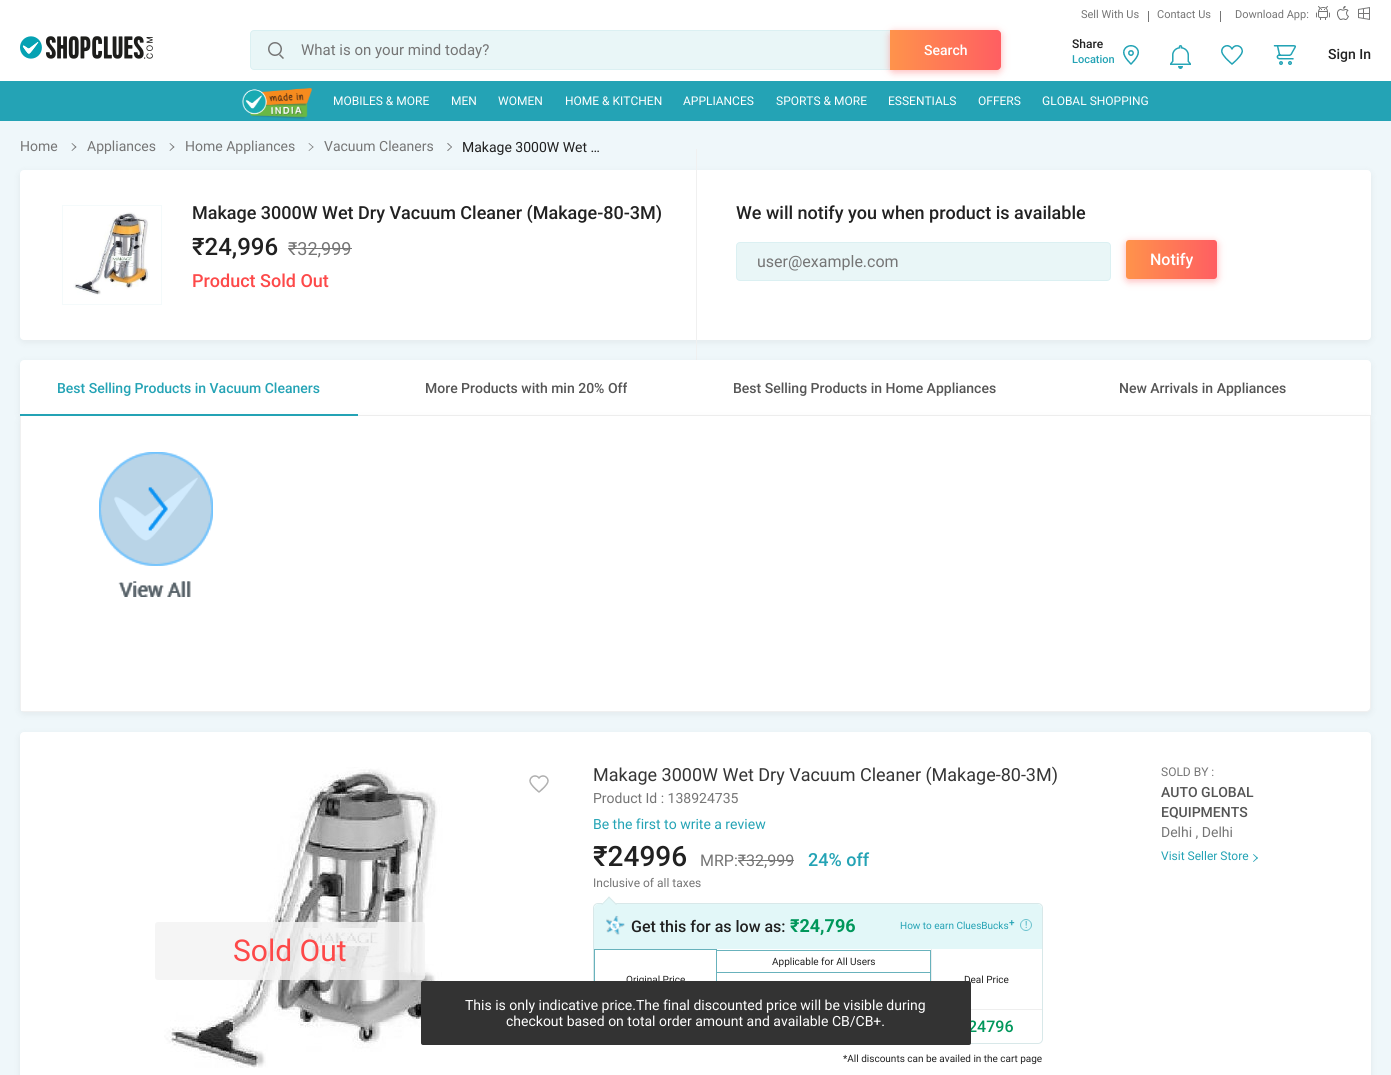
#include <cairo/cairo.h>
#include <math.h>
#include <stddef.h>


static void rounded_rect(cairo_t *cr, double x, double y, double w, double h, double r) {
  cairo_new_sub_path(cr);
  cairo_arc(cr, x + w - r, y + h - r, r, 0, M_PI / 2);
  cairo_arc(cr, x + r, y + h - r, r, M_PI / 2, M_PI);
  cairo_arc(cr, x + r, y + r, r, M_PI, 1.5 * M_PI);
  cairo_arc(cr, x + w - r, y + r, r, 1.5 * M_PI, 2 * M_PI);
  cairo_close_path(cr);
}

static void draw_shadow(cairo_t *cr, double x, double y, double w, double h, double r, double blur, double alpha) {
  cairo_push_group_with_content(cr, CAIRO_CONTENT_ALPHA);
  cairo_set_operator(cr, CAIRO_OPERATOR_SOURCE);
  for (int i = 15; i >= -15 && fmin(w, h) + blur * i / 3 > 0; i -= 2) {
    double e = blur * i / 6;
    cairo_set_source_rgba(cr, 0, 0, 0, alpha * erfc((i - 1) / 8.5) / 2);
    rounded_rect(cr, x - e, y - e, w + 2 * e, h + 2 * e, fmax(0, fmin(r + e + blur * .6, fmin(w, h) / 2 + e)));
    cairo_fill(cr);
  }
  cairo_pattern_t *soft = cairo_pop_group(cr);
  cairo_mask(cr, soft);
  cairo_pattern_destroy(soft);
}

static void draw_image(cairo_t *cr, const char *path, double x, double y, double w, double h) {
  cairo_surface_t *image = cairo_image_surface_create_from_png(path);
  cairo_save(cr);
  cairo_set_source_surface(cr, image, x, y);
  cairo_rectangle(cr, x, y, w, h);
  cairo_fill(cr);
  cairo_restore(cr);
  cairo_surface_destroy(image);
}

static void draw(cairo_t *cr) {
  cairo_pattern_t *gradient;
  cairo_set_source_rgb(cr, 239 / 255.0, 247 / 255.0, 250 / 255.0);
  cairo_paint(cr);
  cairo_set_source_rgb(cr, 1, 1, 1);
  cairo_rectangle(cr, 0, 0, 1391, 81);
  cairo_fill(cr);
  cairo_set_source_rgb(cr, 117 / 255.0, 117 / 255.0, 117 / 255.0);
  cairo_rectangle(cr, 1148, 11, 1, 11);
  cairo_fill(cr);
  cairo_rectangle(cr, 1220, 11, 1, 11);
  cairo_fill(cr);
  draw_image(cr, "images/1.png", 1316, 6, 14, 14);
  draw_image(cr, "images/2.png", 1337, 6, 12, 14);
  draw_image(cr, "images/3.png", 1358, 7, 12, 13);
  draw_image(cr, "images/4.png", 20, 36, 133, 23);
  cairo_set_source_rgb(cr, 233 / 255.0, 246 / 255.0, 247 / 255.0);
  rounded_rect(cr, 250.5, 30.5, 750, 39, 3.5);
  cairo_fill_preserve(cr);
  cairo_set_source_rgb(cr, 219 / 255.0, 240 / 255.0, 242 / 255.0);
  cairo_set_line_width(cr, 1);
  cairo_stroke(cr);
  draw_image(cr, "images/5.png", 268, 42, 16, 17);
  cairo_set_source_rgb(cr, 36 / 255.0, 163 / 255.0, 181 / 255.0);
  cairo_rectangle(cr, 0, 81, 1391, 40);
  cairo_fill(cr);
  cairo_set_source_rgb(cr, 1, 97 / 255.0, 98 / 255.0);
  draw_shadow(cr, 890, 32, 111, 40, 4, 4, 0.46);
  gradient = cairo_pattern_create_linear(890, 50, 1001, 50);
  cairo_pattern_add_color_stop_rgba(gradient, 0, 1, 147 / 255.0, 75 / 255.0, 1);
  cairo_pattern_add_color_stop_rgba(gradient, 1, 1, 94 / 255.0, 98 / 255.0, 1);
  cairo_set_source(cr, gradient);
  cairo_pattern_destroy(gradient);
  cairo_new_path(cr);
  cairo_move_to(cr, 890, 30);
  cairo_line_to(cr, 997, 30);
  cairo_curve_to(cr, 999, 30, 1001, 32, 1001, 34);
  cairo_line_to(cr, 1001, 66);
  cairo_curve_to(cr, 1001, 68, 999, 70, 997, 70);
  cairo_line_to(cr, 890, 70);
  cairo_close_path(cr);
  cairo_fill(cr);
  draw_image(cr, "images/6.png", 1123, 45, 16, 20);
  draw_image(cr, "images/7.png", 1170, 45, 21, 24);
  draw_image(cr, "images/8.png", 1221, 45, 22, 20);
  draw_image(cr, "images/9.png", 1273, 45, 23, 20);
  draw_image(cr, "images/10.png", 241, 88, 71, 31);
  cairo_set_source_rgb(cr, 117 / 255.0, 117 / 255.0, 117 / 255.0);
  cairo_new_path(cr);
  cairo_move_to(cr, 71.5, 143.5);
  cairo_line_to(cr, 72, 143);
  cairo_line_to(cr, 76.5, 147);
  cairo_line_to(cr, 75.5, 147.5);
  cairo_close_path(cr);
  cairo_fill(cr);
  cairo_new_path(cr);
  cairo_move_to(cr, 71.5, 150.5);
  cairo_line_to(cr, 75.5, 146.5);
  cairo_line_to(cr, 76.5, 147);
  cairo_line_to(cr, 72, 151);
  cairo_close_path(cr);
  cairo_fill(cr);
  cairo_new_path(cr);
  cairo_move_to(cr, 169.5, 143.5);
  cairo_line_to(cr, 170, 143);
  cairo_line_to(cr, 174.5, 147);
  cairo_line_to(cr, 173.5, 147.5);
  cairo_close_path(cr);
  cairo_fill(cr);
  cairo_new_path(cr);
  cairo_move_to(cr, 169.5, 150.5);
  cairo_line_to(cr, 173.5, 146.5);
  cairo_line_to(cr, 174.5, 147);
  cairo_line_to(cr, 170, 151);
  cairo_close_path(cr);
  cairo_fill(cr);
  cairo_new_path(cr);
  cairo_move_to(cr, 308.5, 143.5);
  cairo_line_to(cr, 309, 143);
  cairo_line_to(cr, 313.5, 147);
  cairo_line_to(cr, 313, 147.5);
  cairo_close_path(cr);
  cairo_fill(cr);
  cairo_new_path(cr);
  cairo_move_to(cr, 308.5, 150.5);
  cairo_line_to(cr, 313, 146.5);
  cairo_line_to(cr, 313.5, 147);
  cairo_line_to(cr, 309, 151);
  cairo_close_path(cr);
  cairo_fill(cr);
  cairo_new_path(cr);
  cairo_move_to(cr, 447, 143.5);
  cairo_line_to(cr, 448, 143);
  cairo_line_to(cr, 452, 147);
  cairo_line_to(cr, 451.5, 147.5);
  cairo_close_path(cr);
  cairo_fill(cr);
  cairo_new_path(cr);
  cairo_move_to(cr, 447, 150.5);
  cairo_line_to(cr, 451.5, 146.5);
  cairo_line_to(cr, 452, 147);
  cairo_line_to(cr, 448, 151);
  cairo_close_path(cr);
  cairo_fill(cr);
  cairo_set_source_rgb(cr, 0, 0, 0);
  draw_shadow(cr, 20, 172, 1351, 170, 4, 4, 0.06);
  cairo_set_source_rgb(cr, 1, 1, 1);
  rounded_rect(cr, 20, 170, 1351, 170, 4);
  cairo_fill(cr);
  cairo_rectangle(cr, 62.5, 205.5, 99, 99);
  cairo_set_source_rgb(cr, 244 / 255.0, 250 / 255.0, 251 / 255.0);
  cairo_stroke(cr);
  draw_image(cr, "images/11.png", 73, 212, 77, 83);
  cairo_set_source_rgb(cr, 117 / 255.0, 117 / 255.0, 117 / 255.0);
  cairo_rectangle(cr, 288, 248, 64, 1);
  cairo_fill(cr);
  cairo_set_source_rgb(cr, 240 / 255.0, 240 / 255.0, 240 / 255.0);
  cairo_rectangle(cr, 696, 149, 1, 212);
  cairo_fill(cr);
  cairo_set_source_rgb(cr, 233 / 255.0, 246 / 255.0, 247 / 255.0);
  rounded_rect(cr, 736.5, 242.5, 374, 38, 3.5);
  cairo_fill_preserve(cr);
  cairo_set_source_rgb(cr, 219 / 255.0, 240 / 255.0, 242 / 255.0);
  cairo_stroke(cr);
  cairo_set_source_rgb(cr, 1, 97 / 255.0, 98 / 255.0);
  draw_shadow(cr, 1126, 242, 91, 39, 3, 4, 0.46);
  gradient = cairo_pattern_create_linear(1126, 260, 1217, 260);
  cairo_pattern_add_color_stop_rgba(gradient, 0, 1, 147 / 255.0, 75 / 255.0, 1);
  cairo_pattern_add_color_stop_rgba(gradient, 1, 1, 94 / 255.0, 98 / 255.0, 1);
  cairo_set_source(cr, gradient);
  cairo_pattern_destroy(gradient);
  rounded_rect(cr, 1126, 240, 91, 39, 3);
  cairo_fill(cr);
  cairo_set_source_rgb(cr, 0, 0, 0);
  draw_shadow(cr, 20, 362, 1351, 56, 4, 4, 0.06);
  cairo_set_source_rgb(cr, 1, 1, 1);
  cairo_new_path(cr);
  cairo_move_to(cr, 24, 360);
  cairo_line_to(cr, 1367, 360);
  cairo_curve_to(cr, 1369, 360, 1371, 362, 1371, 364);
  cairo_line_to(cr, 1371, 416);
  cairo_line_to(cr, 20, 416);
  cairo_line_to(cr, 20, 364);
  cairo_curve_to(cr, 20, 362, 22, 360, 24, 360);
  cairo_close_path(cr);
  cairo_fill(cr);
  cairo_set_source_rgb(cr, 240 / 255.0, 240 / 255.0, 240 / 255.0);
  cairo_rectangle(cr, 358, 415, 1013, 1);
  cairo_fill(cr);
  cairo_set_source_rgb(cr, 0, 0, 0);
  draw_shadow(cr, 20, 418, 1351, 296, 4, 4, 0.06);
  cairo_set_source_rgb(cr, 36 / 255.0, 163 / 255.0, 181 / 255.0);
  cairo_rectangle(cr, 20, 414, 338, 2);
  cairo_fill(cr);
  cairo_set_source_rgb(cr, 1, 1, 1);
  cairo_new_path(cr);
  cairo_move_to(cr, 21, 416);
  cairo_line_to(cr, 1370, 416);
  cairo_line_to(cr, 1370, 708);
  cairo_curve_to(cr, 1370, 709.5, 1368.5, 711, 1367, 711);
  cairo_line_to(cr, 24, 711);
  cairo_curve_to(cr, 22.5, 711, 21, 709.5, 21, 708);
  cairo_close_path(cr);
  cairo_fill(cr);
  cairo_set_source_rgb(cr, 240 / 255.0, 240 / 255.0, 240 / 255.0);
  cairo_set_fill_rule(cr, CAIRO_FILL_RULE_EVEN_ODD);
  cairo_new_path(cr);
  cairo_move_to(cr, 20, 416);
  cairo_line_to(cr, 1371, 416);
  cairo_line_to(cr, 1371, 708);
  cairo_curve_to(cr, 1371, 710, 1369, 712, 1367, 712);
  cairo_line_to(cr, 24, 712);
  cairo_curve_to(cr, 22, 712, 20, 710, 20, 708);
  cairo_close_path(cr);
  cairo_move_to(cr, 21, 416);
  cairo_line_to(cr, 1370, 416);
  cairo_line_to(cr, 1370, 708);
  cairo_curve_to(cr, 1370, 710, 1369, 711, 1367, 711);
  cairo_line_to(cr, 24, 711);
  cairo_curve_to(cr, 22, 711, 21, 710, 21, 708);
  cairo_close_path(cr);
  cairo_fill(cr);
  cairo_rectangle(cr, 21.5, 416.5, 269, 294);
  cairo_set_source_rgb(cr, 1, 1, 1);
  cairo_stroke(cr);
  draw_image(cr, "images/12.png", 99, 452, 114, 145);
  draw_image(cr, "images/13.png", 99, 452, 114, 145);
  cairo_set_source_rgb(cr, 0, 0, 0);
  draw_shadow(cr, 20, 734, 1351, 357, 4, 4, 0.06);
  cairo_set_source_rgb(cr, 1, 1, 1);
  rounded_rect(cr, 20, 732, 1351, 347, 4);
  cairo_fill(cr);
  cairo_set_source_rgb(cr, 117 / 255.0, 117 / 255.0, 117 / 255.0);
  cairo_rectangle(cr, 738, 860, 56, 1);
  cairo_fill(cr);
  rounded_rect(cr, 593.5, 903.5, 449, 140, 4.5);
  cairo_set_source_rgb(cr, 216 / 255.0, 232 / 255.0, 233 / 255.0);
  cairo_stroke(cr);
  cairo_set_source_rgb(cr, 226 / 255.0, 247 / 255.0, 248 / 255.0);
  cairo_new_path(cr);
  cairo_move_to(cr, 599, 904);
  cairo_line_to(cr, 1037, 904);
  cairo_curve_to(cr, 1040, 904, 1042, 906, 1042, 909);
  cairo_line_to(cr, 1042, 949);
  cairo_line_to(cr, 594, 949);
  cairo_line_to(cr, 594, 909);
  cairo_curve_to(cr, 594, 906, 596, 904, 599, 904);
  cairo_close_path(cr);
  cairo_fill(cr);
  cairo_set_fill_rule(cr, CAIRO_FILL_RULE_WINDING);
  cairo_new_path(cr);
  cairo_move_to(cr, 609, 896.5);
  cairo_line_to(cr, 617, 904.5);
  cairo_line_to(cr, 609, 912.5);
  cairo_line_to(cr, 601.5, 904.5);
  cairo_close_path(cr);
  cairo_fill(cr);
  cairo_set_source_rgb(cr, 216 / 255.0, 232 / 255.0, 233 / 255.0);
  cairo_new_path(cr);
  cairo_move_to(cr, 609, 896.5);
  cairo_line_to(cr, 617, 904.5);
  cairo_line_to(cr, 616, 905);
  cairo_line_to(cr, 608.5, 897.5);
  cairo_close_path(cr);
  cairo_fill(cr);
  cairo_new_path(cr);
  cairo_move_to(cr, 609, 896.5);
  cairo_line_to(cr, 609.5, 897.5);
  cairo_line_to(cr, 602, 905);
  cairo_line_to(cr, 601.5, 904.5);
  cairo_close_path(cr);
  cairo_fill(cr);
  draw_image(cr, "images/14.png", 606, 915, 19, 20);
  draw_image(cr, "images/15.png", 1020, 919, 12, 12);
  cairo_set_source_rgb(cr, 238 / 255.0, 238 / 255.0, 238 / 255.0);
  cairo_rectangle(cr, 971, 1009, 71, 1);
  cairo_fill(cr);
  cairo_rectangle(cr, 931, 949, 1, 32);
  cairo_fill(cr);
  cairo_set_source_rgb(cr, 104 / 255.0, 178 / 255.0, 188 / 255.0);
  cairo_rectangle(cr, 717, 950, 214, 1);
  cairo_fill(cr);
  cairo_rectangle(cr, 717, 972, 214, 1);
  cairo_fill(cr);
  cairo_rectangle(cr, 930, 972, 1, 9);
  cairo_fill(cr);
  cairo_rectangle(cr, 930, 950, 1, 23);
  cairo_fill(cr);
  cairo_rectangle(cr, 594, 949, 123, 1);
  cairo_fill(cr);
  cairo_rectangle(cr, 716, 949, 1, 32);
  cairo_fill(cr);
  cairo_rectangle(cr, 594, 949, 1, 32);
  cairo_fill(cr);
  cairo_set_source_rgb(cr, 36 / 255.0, 163 / 255.0, 181 / 255.0);
  cairo_new_path(cr);
  cairo_move_to(cr, 1253, 854.5);
  cairo_line_to(cr, 1253.5, 854);
  cairo_line_to(cr, 1258, 858);
  cairo_line_to(cr, 1257, 858.5);
  cairo_close_path(cr);
  cairo_fill(cr);
  cairo_new_path(cr);
  cairo_move_to(cr, 1253, 861.5);
  cairo_line_to(cr, 1257, 857.5);
  cairo_line_to(cr, 1258, 858);
  cairo_line_to(cr, 1253.5, 862);
  cairo_close_path(cr);
  cairo_fill(cr);
  draw_image(cr, "images/16.png", 164, 767, 279, 301);
  draw_image(cr, "images/17.png", 529, 775, 20, 18);
  cairo_set_source_rgba(cr, 244 / 255.0, 244 / 255.0, 244 / 255.0, 0.84);
  rounded_rect(cr, 155, 922, 270, 58, 3);
  cairo_fill(cr);
  cairo_select_font_face(cr, "Roboto", CAIRO_FONT_SLANT_NORMAL, CAIRO_FONT_WEIGHT_NORMAL);
  cairo_set_font_size(cr, 11);
  cairo_set_source_rgb(cr, 117 / 255.0, 117 / 255.0, 117 / 255.0);
  cairo_move_to(cr, 1081, 18);
  cairo_show_text(cr, "Sell With Us");
  cairo_move_to(cr, 1157, 18);
  cairo_show_text(cr, "Contact Us");
  cairo_move_to(cr, 1235, 18);
  cairo_show_text(cr, "Download App:");
  cairo_set_font_size(cr, 15);
  cairo_move_to(cr, 301, 55);
  cairo_show_text(cr, "What is on your mind today?");
  cairo_select_font_face(cr, "Roboto Medium", CAIRO_FONT_SLANT_NORMAL, CAIRO_FONT_WEIGHT_NORMAL);
  cairo_set_font_size(cr, 14);
  cairo_set_source_rgb(cr, 1, 1, 1);
  cairo_move_to(cr, 924, 55);
  cairo_show_text(cr, "Search");
  cairo_set_font_size(cr, 12);
  cairo_set_source_rgb(cr, 33 / 255.0, 33 / 255.0, 33 / 255.0);
  cairo_move_to(cr, 1072, 48);
  cairo_show_text(cr, "Share");
  cairo_set_font_size(cr, 11);
  cairo_set_source_rgb(cr, 36 / 255.0, 163 / 255.0, 181 / 255.0);
  cairo_move_to(cr, 1072, 63);
  cairo_show_text(cr, "Location");
  cairo_set_font_size(cr, 14);
  cairo_set_source_rgb(cr, 33 / 255.0, 33 / 255.0, 33 / 255.0);
  cairo_move_to(cr, 1328, 59);
  cairo_show_text(cr, "Sign In");
  cairo_select_font_face(cr, "Roboto", CAIRO_FONT_SLANT_NORMAL, CAIRO_FONT_WEIGHT_NORMAL);
  cairo_set_font_size(cr, 12);
  cairo_set_source_rgb(cr, 1, 1, 1);
  cairo_move_to(cr, 333, 105);
  cairo_show_text(cr, "MOBILES & MORE");
  cairo_move_to(cr, 451, 105);
  cairo_show_text(cr, "MEN");
  cairo_move_to(cr, 498, 105);
  cairo_show_text(cr, "WOMEN");
  cairo_move_to(cr, 565, 105);
  cairo_show_text(cr, "HOME & KITCHEN");
  cairo_move_to(cr, 683, 105);
  cairo_show_text(cr, "APPLIANCES");
  cairo_move_to(cr, 776, 105);
  cairo_show_text(cr, "SPORTS & MORE");
  cairo_move_to(cr, 888, 105);
  cairo_show_text(cr, "ESSENTIALS");
  cairo_move_to(cr, 978, 105);
  cairo_show_text(cr, "OFFERS");
  cairo_move_to(cr, 1042, 105);
  cairo_show_text(cr, "GLOBAL SHOPPING");
  cairo_set_font_size(cr, 14);
  cairo_set_source_rgb(cr, 117 / 255.0, 117 / 255.0, 117 / 255.0);
  cairo_move_to(cr, 20, 151);
  cairo_show_text(cr, "Home");
  cairo_move_to(cr, 87, 151);
  cairo_show_text(cr, "Appliances");
  cairo_move_to(cr, 185, 151);
  cairo_show_text(cr, "Home Appliances");
  cairo_move_to(cr, 324, 151);
  cairo_show_text(cr, "Vacuum Cleaners");
  cairo_set_source_rgb(cr, 33 / 255.0, 33 / 255.0, 33 / 255.0);
  cairo_move_to(cr, 462, 152);
  cairo_show_text(cr, "Makage 3000W Wet …");
  cairo_select_font_face(cr, "Roboto Medium", CAIRO_FONT_SLANT_NORMAL, CAIRO_FONT_WEIGHT_NORMAL);
  cairo_set_font_size(cr, 18);
  cairo_move_to(cr, 192, 219);
  cairo_show_text(cr, "Makage 3000W Wet Dry Vacuum Cleaner (Makage-80-3M)");
  cairo_set_font_size(cr, 24);
  cairo_move_to(cr, 192, 255);
  cairo_show_text(cr, "₹24,996");
  cairo_select_font_face(cr, "Roboto", CAIRO_FONT_SLANT_NORMAL, CAIRO_FONT_WEIGHT_NORMAL);
  cairo_set_font_size(cr, 18);
  cairo_set_source_rgb(cr, 117 / 255.0, 117 / 255.0, 117 / 255.0);
  cairo_move_to(cr, 288, 255);
  cairo_show_text(cr, "₹32,999");
  cairo_select_font_face(cr, "Roboto Medium", CAIRO_FONT_SLANT_NORMAL, CAIRO_FONT_WEIGHT_NORMAL);
  cairo_set_source_rgb(cr, 253 / 255.0, 73 / 255.0, 73 / 255.0);
  cairo_move_to(cr, 192, 287);
  cairo_show_text(cr, "Product Sold Out");
  cairo_set_source_rgb(cr, 33 / 255.0, 33 / 255.0, 33 / 255.0);
  cairo_move_to(cr, 736, 219);
  cairo_show_text(cr, "We will notify you when product is available");
  cairo_select_font_face(cr, "Roboto", CAIRO_FONT_SLANT_NORMAL, CAIRO_FONT_WEIGHT_NORMAL);
  cairo_set_font_size(cr, 16);
  cairo_set_source_rgb(cr, 117 / 255.0, 117 / 255.0, 117 / 255.0);
  cairo_move_to(cr, 757, 267);
  cairo_show_text(cr, "user@example.com");
  cairo_select_font_face(cr, "Roboto Medium", CAIRO_FONT_SLANT_NORMAL, CAIRO_FONT_WEIGHT_NORMAL);
  cairo_set_source_rgb(cr, 1, 1, 1);
  cairo_move_to(cr, 1150, 265);
  cairo_show_text(cr, "Notify");
  cairo_set_font_size(cr, 14);
  cairo_set_source_rgb(cr, 36 / 255.0, 163 / 255.0, 181 / 255.0);
  cairo_move_to(cr, 57, 393);
  cairo_show_text(cr, "Best Selling Products in Vacuum Cleaners");
  cairo_set_source_rgb(cr, 85 / 255.0, 85 / 255.0, 85 / 255.0);
  cairo_move_to(cr, 425, 393);
  cairo_show_text(cr, "More Products with min 20% Off");
  cairo_move_to(cr, 733, 393);
  cairo_show_text(cr, "Best Selling Products in Home Appliances");
  cairo_move_to(cr, 1119, 393);
  cairo_show_text(cr, "New Arrivals in Appliances");
  cairo_select_font_face(cr, "Roboto", CAIRO_FONT_SLANT_NORMAL, CAIRO_FONT_WEIGHT_NORMAL);
  cairo_set_font_size(cr, 18);
  cairo_set_source_rgb(cr, 53 / 255.0, 53 / 255.0, 53 / 255.0);
  cairo_move_to(cr, 593, 781);
  cairo_show_text(cr, "Makage 3000W Wet Dry Vacuum Cleaner (Makage-80-3M)");
  cairo_set_font_size(cr, 14);
  cairo_set_source_rgb(cr, 117 / 255.0, 117 / 255.0, 117 / 255.0);
  cairo_move_to(cr, 593, 803);
  cairo_show_text(cr, "Product Id : 138924735");
  cairo_set_source_rgb(cr, 36 / 255.0, 163 / 255.0, 181 / 255.0);
  cairo_move_to(cr, 593, 829);
  cairo_show_text(cr, "Be the first to write a review");
  cairo_select_font_face(cr, "Roboto Medium", CAIRO_FONT_SLANT_NORMAL, CAIRO_FONT_WEIGHT_NORMAL);
  cairo_set_font_size(cr, 28);
  cairo_set_source_rgb(cr, 33 / 255.0, 33 / 255.0, 33 / 255.0);
  cairo_move_to(cr, 593, 866);
  cairo_show_text(cr, "₹24996");
  cairo_select_font_face(cr, "Roboto", CAIRO_FONT_SLANT_NORMAL, CAIRO_FONT_WEIGHT_NORMAL);
  cairo_set_font_size(cr, 16);
  cairo_set_source_rgb(cr, 117 / 255.0, 117 / 255.0, 117 / 255.0);
  cairo_move_to(cr, 700, 866);
  cairo_show_text(cr, "MRP:₹32,999");
  cairo_select_font_face(cr, "Roboto Medium", CAIRO_FONT_SLANT_NORMAL, CAIRO_FONT_WEIGHT_NORMAL);
  cairo_set_font_size(cr, 18);
  cairo_set_source_rgb(cr, 36 / 255.0, 163 / 255.0, 181 / 255.0);
  cairo_move_to(cr, 808, 866);
  cairo_show_text(cr, "24% off");
  cairo_select_font_face(cr, "Roboto", CAIRO_FONT_SLANT_NORMAL, CAIRO_FONT_WEIGHT_NORMAL);
  cairo_set_font_size(cr, 12);
  cairo_set_source_rgb(cr, 117 / 255.0, 117 / 255.0, 117 / 255.0);
  cairo_move_to(cr, 593, 887);
  cairo_show_text(cr, "Inclusive of all taxes");
  cairo_select_font_face(cr, "Roboto Medium", CAIRO_FONT_SLANT_NORMAL, CAIRO_FONT_WEIGHT_NORMAL);
  cairo_set_font_size(cr, 16);
  cairo_set_source_rgb(cr, 33 / 255.0, 33 / 255.0, 33 / 255.0);
  cairo_move_to(cr, 631, 932);
  cairo_show_text(cr, "Get this for as low as:");
  cairo_select_font_face(cr, "Roboto", CAIRO_FONT_SLANT_NORMAL, CAIRO_FONT_WEIGHT_BOLD);
  cairo_set_font_size(cr, 18);
  cairo_set_source_rgb(cr, 0, 151 / 255.0, 91 / 255.0);
  cairo_move_to(cr, 790, 932);
  cairo_show_text(cr, "₹24,796");
  cairo_select_font_face(cr, "Roboto", CAIRO_FONT_SLANT_NORMAL, CAIRO_FONT_WEIGHT_NORMAL);
  cairo_set_font_size(cr, 10);
  cairo_set_source_rgb(cr, 36 / 255.0, 163 / 255.0, 181 / 255.0);
  cairo_move_to(cr, 900, 929);
  cairo_show_text(cr, "How to earn CluesBucks");
  cairo_select_font_face(cr, "Roboto Medium", CAIRO_FONT_SLANT_NORMAL, CAIRO_FONT_WEIGHT_NORMAL);
  cairo_move_to(cr, 1009, 926);
  cairo_show_text(cr, "+");
  cairo_select_font_face(cr, "Roboto", CAIRO_FONT_SLANT_NORMAL, CAIRO_FONT_WEIGHT_NORMAL);
  cairo_set_source_rgb(cr, 33 / 255.0, 33 / 255.0, 33 / 255.0);
  cairo_move_to(cr, 772, 965);
  cairo_show_text(cr, "Applicable for All Users");
  cairo_move_to(cr, 626, 983);
  cairo_show_text(cr, "Original Price");
  cairo_move_to(cr, 964, 983);
  cairo_show_text(cr, "Deal Price");
  cairo_select_font_face(cr, "Roboto Medium", CAIRO_FONT_SLANT_NORMAL, CAIRO_FONT_WEIGHT_NORMAL);
  cairo_set_font_size(cr, 16);
  cairo_set_source_rgb(cr, 0, 151 / 255.0, 91 / 255.0);
  cairo_move_to(cr, 968, 1032);
  cairo_show_text(cr, "24796");
  cairo_select_font_face(cr, "Roboto", CAIRO_FONT_SLANT_NORMAL, CAIRO_FONT_WEIGHT_NORMAL);
  cairo_set_font_size(cr, 10);
  cairo_set_source_rgb(cr, 33 / 255.0, 33 / 255.0, 33 / 255.0);
  cairo_move_to(cr, 843, 1062);
  cairo_show_text(cr, "*All discounts can be availed in the cart page");
  cairo_set_font_size(cr, 12);
  cairo_set_source_rgb(cr, 117 / 255.0, 117 / 255.0, 117 / 255.0);
  cairo_move_to(cr, 1161, 776);
  cairo_show_text(cr, "SOLD BY :");
  cairo_select_font_face(cr, "Roboto Medium", CAIRO_FONT_SLANT_NORMAL, CAIRO_FONT_WEIGHT_NORMAL);
  cairo_set_font_size(cr, 14);
  cairo_set_source_rgb(cr, 85 / 255.0, 85 / 255.0, 85 / 255.0);
  cairo_move_to(cr, 1161, 797);
  cairo_show_text(cr, "AUTO GLOBAL");
  cairo_move_to(cr, 1161, 817);
  cairo_show_text(cr, "EQUIPMENTS");
  cairo_select_font_face(cr, "Roboto", CAIRO_FONT_SLANT_NORMAL, CAIRO_FONT_WEIGHT_NORMAL);
  cairo_set_source_rgb(cr, 117 / 255.0, 117 / 255.0, 117 / 255.0);
  cairo_move_to(cr, 1161, 837);
  cairo_show_text(cr, "Delhi , Delhi");
  cairo_set_font_size(cr, 12);
  cairo_set_source_rgb(cr, 36 / 255.0, 163 / 255.0, 181 / 255.0);
  cairo_move_to(cr, 1161, 860);
  cairo_show_text(cr, "Visit Seller Store");
  cairo_set_font_size(cr, 30);
  cairo_set_source_rgb(cr, 253 / 255.0, 73 / 255.0, 73 / 255.0);
  cairo_move_to(cr, 233, 961);
  cairo_show_text(cr, "Sold Out");
  cairo_set_source_rgb(cr, 51 / 255.0, 51 / 255.0, 51 / 255.0);
  rounded_rect(cr, 421, 981, 550, 64, 2);
  cairo_fill(cr);
  cairo_set_font_size(cr, 14);
  cairo_set_source_rgb(cr, 1, 1, 1);
  cairo_move_to(cr, 465, 1010);
  cairo_show_text(cr, "This is only indicative price.The final discounted price will be visible during");
  cairo_move_to(cr, 506, 1026);
  cairo_show_text(cr, "checkout based on total order amount and available CB/CB+.");
}

int main(void) {
  cairo_surface_t *surface = cairo_image_surface_create(CAIRO_FORMAT_RGB24, 1391, 1075);
  cairo_t *cr = cairo_create(surface);
  cairo_font_options_t *options = cairo_font_options_create();
  cairo_font_options_set_hint_metrics(options, CAIRO_HINT_METRICS_OFF);
  cairo_font_options_set_hint_style(options, CAIRO_HINT_STYLE_NONE);
  cairo_set_font_options(cr, options);
  cairo_set_miter_limit(cr, 4);
  draw(cr);
  cairo_surface_write_to_png(surface, "out.png");
  cairo_font_options_destroy(options);
  cairo_destroy(cr);
  cairo_surface_destroy(surface);
  return 0;
}
